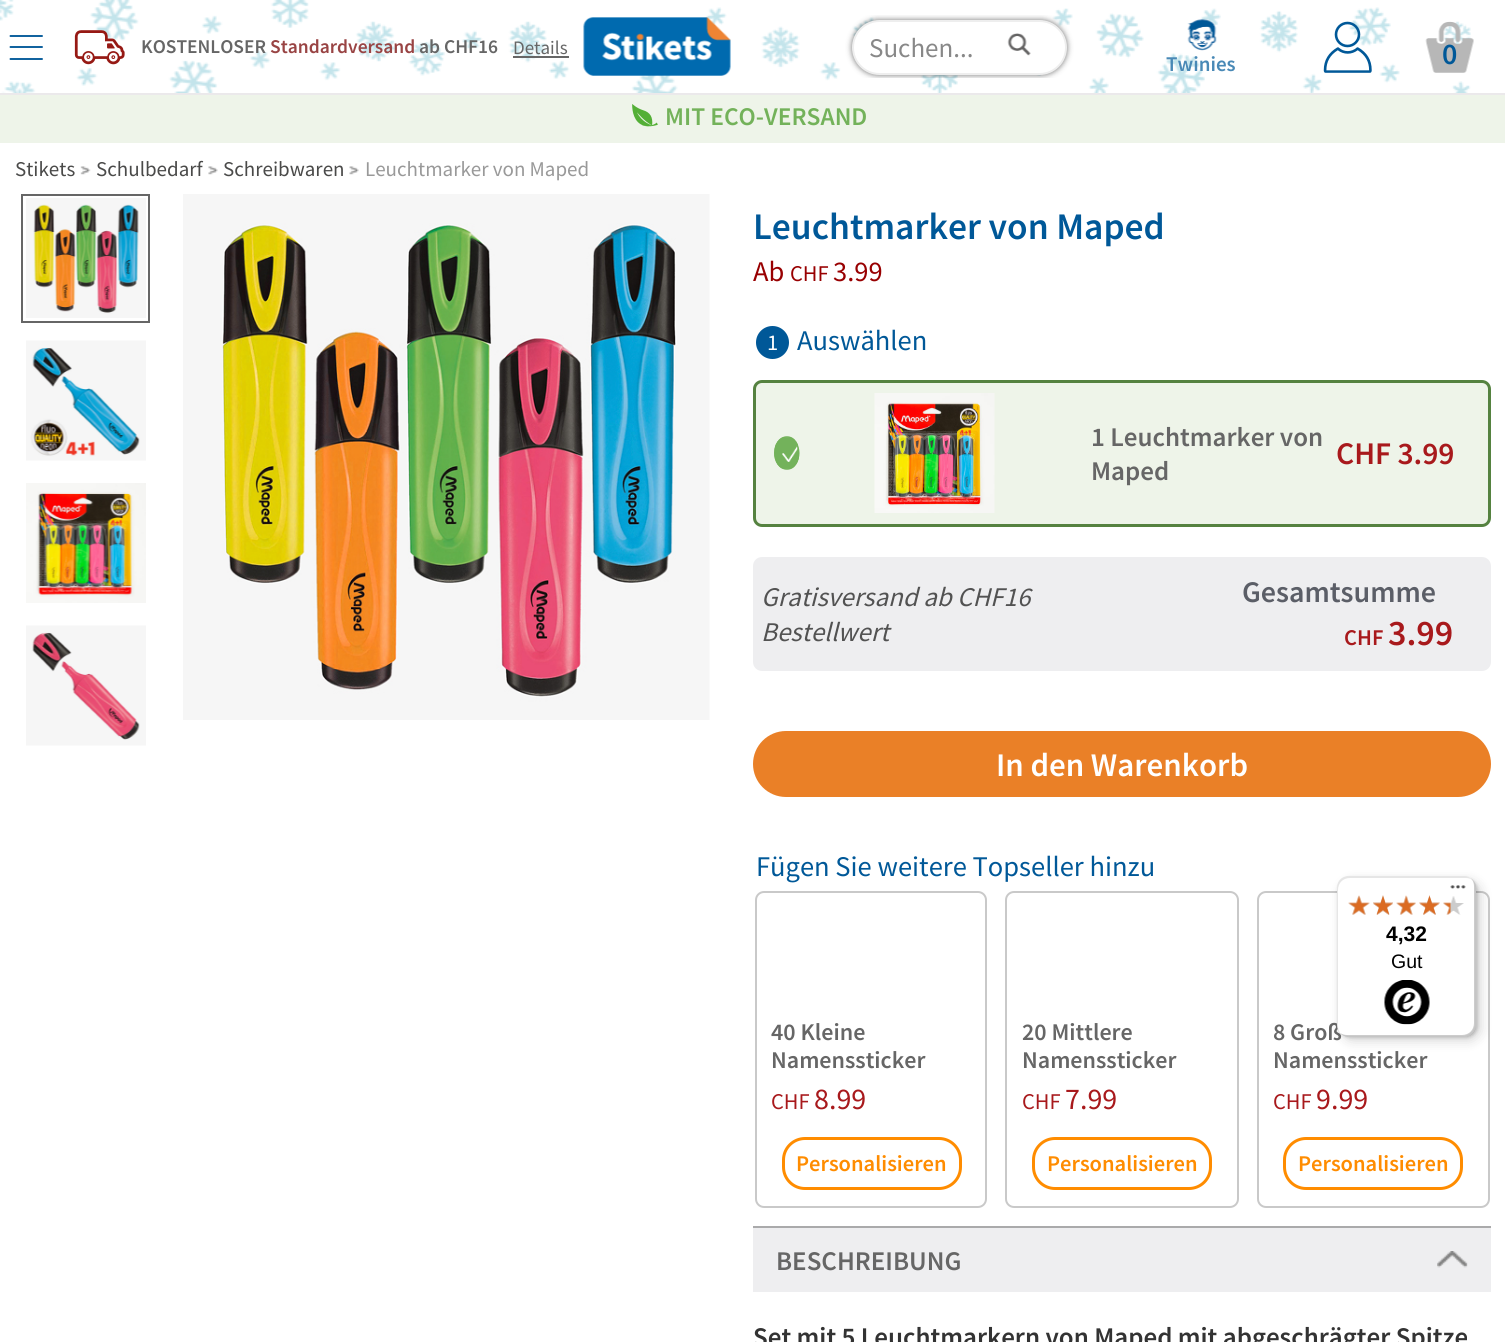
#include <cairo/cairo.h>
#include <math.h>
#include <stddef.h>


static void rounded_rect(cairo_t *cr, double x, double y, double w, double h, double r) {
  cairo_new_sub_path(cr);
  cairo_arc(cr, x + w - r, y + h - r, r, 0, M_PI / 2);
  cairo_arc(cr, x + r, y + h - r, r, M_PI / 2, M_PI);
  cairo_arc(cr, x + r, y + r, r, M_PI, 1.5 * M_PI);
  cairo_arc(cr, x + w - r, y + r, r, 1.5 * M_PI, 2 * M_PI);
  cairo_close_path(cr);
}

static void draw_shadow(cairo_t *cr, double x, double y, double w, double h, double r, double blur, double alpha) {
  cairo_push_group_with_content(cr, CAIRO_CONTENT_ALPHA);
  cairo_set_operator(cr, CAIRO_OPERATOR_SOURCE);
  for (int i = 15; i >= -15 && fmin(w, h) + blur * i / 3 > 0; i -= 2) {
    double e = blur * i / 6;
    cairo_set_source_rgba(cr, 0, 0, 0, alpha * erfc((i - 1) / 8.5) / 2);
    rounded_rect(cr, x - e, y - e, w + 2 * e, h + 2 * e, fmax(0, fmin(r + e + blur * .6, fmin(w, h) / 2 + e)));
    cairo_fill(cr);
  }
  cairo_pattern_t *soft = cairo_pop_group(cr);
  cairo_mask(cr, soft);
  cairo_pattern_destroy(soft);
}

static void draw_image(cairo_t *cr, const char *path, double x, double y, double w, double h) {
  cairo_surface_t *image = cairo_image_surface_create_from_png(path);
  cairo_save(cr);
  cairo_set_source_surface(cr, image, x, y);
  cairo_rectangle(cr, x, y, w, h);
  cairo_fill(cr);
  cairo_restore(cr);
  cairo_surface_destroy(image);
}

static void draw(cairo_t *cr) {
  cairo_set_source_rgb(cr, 1, 1, 1);
  cairo_paint(cr);
  cairo_set_source_rgb(cr, 235 / 255.0, 233 / 255.0, 235 / 255.0);
  cairo_rectangle(cr, 0, 93, 1505, 2);
  cairo_fill(cr);
  draw_image(cr, "images/1.png", 0, 0, 1471, 93);
  cairo_new_path(cr);
  cairo_move_to(cr, 10.5, 59);
  cairo_line_to(cr, 42, 59);
  cairo_move_to(cr, 10.5, 47);
  cairo_line_to(cr, 42, 47);
  cairo_move_to(cr, 10.5, 36);
  cairo_line_to(cr, 42, 36);
  cairo_set_source_rgb(cr, 0, 88 / 255.0, 152 / 255.0);
  cairo_set_line_width(cr, 1.9);
  cairo_set_line_cap(cr, CAIRO_LINE_CAP_ROUND);
  cairo_stroke(cr);
  draw_image(cr, "images/2.png", 74, 30, 51, 35);
  cairo_set_source_rgb(cr, 102 / 255.0, 102 / 255.0, 102 / 255.0);
  cairo_rectangle(cr, 513, 56, 56, 2);
  cairo_fill(cr);
  draw_image(cr, "images/3.png", 583, 17, 148, 59);
  cairo_save(cr);
  cairo_rectangle(cr, 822, 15, 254, 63);
  cairo_clip(cr);
  cairo_set_source_rgb(cr, 0, 0, 0);
  draw_shadow(cr, 852, 20, 215, 55, 27.5, 3, 0.55);
  cairo_restore(cr);
  cairo_set_source_rgb(cr, 1, 1, 1);
  rounded_rect(cr, 853, 21, 213, 53, 26.5);
  cairo_fill_preserve(cr);
  cairo_set_source_rgb(cr, 238 / 255.0, 238 / 255.0, 238 / 255.0);
  cairo_set_line_width(cr, 2);
  cairo_set_line_cap(cr, CAIRO_LINE_CAP_BUTT);
  cairo_stroke(cr);
  draw_image(cr, "images/4.png", 1007, 33, 24, 23);
  draw_image(cr, "images/5.png", 1187, 19, 30, 32);
  draw_image(cr, "images/6.png", 1323, 21, 49, 52);
  draw_image(cr, "images/7.png", 1425, 21, 49, 52);
  cairo_set_source_rgb(cr, 238 / 255.0, 244 / 255.0, 233 / 255.0);
  cairo_rectangle(cr, 0, 95, 1505, 48);
  cairo_fill(cr);
  draw_image(cr, "images/8.png", 632, 104, 26, 23);
  draw_image(cr, "images/9.png", 80, 166, 11, 9);
  draw_image(cr, "images/10.png", 208, 166, 10, 9);
  draw_image(cr, "images/11.png", 349, 166, 10, 9);
  cairo_rectangle(cr, 22, 195, 127, 127);
  cairo_set_source_rgb(cr, 102 / 255.0, 102 / 255.0, 102 / 255.0);
  cairo_stroke(cr);
  draw_image(cr, "images/12.png", 26, 198, 120, 120);
  draw_image(cr, "images/13.png", 26, 340, 120, 121);
  draw_image(cr, "images/14.png", 26, 483, 120, 120);
  draw_image(cr, "images/15.png", 26, 625, 120, 121);
  draw_image(cr, "images/16.png", 183, 194, 527, 526);
  cairo_set_source_rgb(cr, 0, 88 / 255.0, 152 / 255.0);
  cairo_arc(cr, 772.5, 342.5, 16.5, 0, 2 * M_PI);
  cairo_fill(cr);
  cairo_set_source_rgb(cr, 238 / 255.0, 244 / 255.0, 233 / 255.0);
  rounded_rect(cr, 754.5, 381.5, 735, 144, 7.5);
  cairo_fill_preserve(cr);
  cairo_set_source_rgb(cr, 85 / 255.0, 130 / 255.0, 64 / 255.0);
  cairo_set_line_width(cr, 3);
  cairo_stroke(cr);
  draw_image(cr, "images/17.png", 774, 436, 26, 34);
  cairo_new_path(cr);
  cairo_move_to(cr, 787, 437);
  cairo_curve_to(cr, 802.5, 437, 802.5, 469, 787, 469);
  cairo_curve_to(cr, 771, 469, 771, 437, 787, 437);
  cairo_close_path(cr);
  cairo_set_source_rgb(cr, 115 / 255.0, 178 / 255.0, 90 / 255.0);
  cairo_set_line_width(cr, 1.5);
  cairo_stroke(cr);
  draw_image(cr, "images/18.png", 874, 393, 121, 120);
  cairo_set_source_rgb(cr, 238 / 255.0, 238 / 255.0, 240 / 255.0);
  rounded_rect(cr, 753, 557, 738, 114, 9);
  cairo_fill(cr);
  cairo_set_source_rgb(cr, 234 / 255.0, 128 / 255.0, 39 / 255.0);
  rounded_rect(cr, 753, 731, 738, 66, 33);
  cairo_fill(cr);
  rounded_rect(cr, 756, 892, 230, 315, 8);
  cairo_set_source_rgb(cr, 201 / 255.0, 201 / 255.0, 201 / 255.0);
  cairo_set_line_width(cr, 2);
  cairo_stroke(cr);
  rounded_rect(cr, 783.5, 1138.5, 177, 50, 21.5);
  cairo_set_source_rgb(cr, 1, 140 / 255.0, 0);
  cairo_set_line_width(cr, 3);
  cairo_stroke(cr);
  rounded_rect(cr, 1006, 892, 232, 315, 8);
  cairo_set_source_rgb(cr, 201 / 255.0, 201 / 255.0, 201 / 255.0);
  cairo_set_line_width(cr, 2);
  cairo_stroke(cr);
  rounded_rect(cr, 1033.5, 1138.5, 177, 50, 21.5);
  cairo_set_source_rgb(cr, 1, 140 / 255.0, 0);
  cairo_set_line_width(cr, 3);
  cairo_stroke(cr);
  rounded_rect(cr, 1258, 892, 231, 315, 8);
  cairo_set_source_rgb(cr, 201 / 255.0, 201 / 255.0, 201 / 255.0);
  cairo_set_line_width(cr, 2);
  cairo_stroke(cr);
  rounded_rect(cr, 1284.5, 1138.5, 177, 50, 21.5);
  cairo_set_source_rgb(cr, 1, 140 / 255.0, 0);
  cairo_set_line_width(cr, 3);
  cairo_stroke(cr);
  cairo_set_source_rgb(cr, 238 / 255.0, 238 / 255.0, 240 / 255.0);
  cairo_rectangle(cr, 753, 1228, 738, 64);
  cairo_fill(cr);
  cairo_set_source_rgb(cr, 170 / 255.0, 170 / 255.0, 171 / 255.0);
  cairo_rectangle(cr, 753, 1226, 738, 2);
  cairo_fill(cr);
  draw_image(cr, "images/19.png", 1437, 1251, 31, 17);
  cairo_set_source_rgb(cr, 0, 0, 0);
  draw_shadow(cr, 1341, 881, 140, 160, 12, 6, 0.15);
  draw_shadow(cr, 1338, 878, 140, 160, 12, 1.5, 0.15);
  cairo_select_font_face(cr, "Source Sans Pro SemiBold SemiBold", CAIRO_FONT_SLANT_NORMAL, CAIRO_FONT_WEIGHT_NORMAL);
  cairo_set_font_size(cr, 19.5);
  cairo_set_source_rgb(cr, 102 / 255.0, 102 / 255.0, 102 / 255.0);
  cairo_move_to(cr, 141, 53);
  cairo_show_text(cr, "KOSTENLOSER");
  cairo_set_source_rgb(cr, 153 / 255.0, 68 / 255.0, 68 / 255.0);
  cairo_move_to(cr, 270, 53);
  cairo_show_text(cr, "Standardversand");
  cairo_set_source_rgb(cr, 102 / 255.0, 102 / 255.0, 102 / 255.0);
  cairo_move_to(cr, 419, 53);
  cairo_show_text(cr, "ab CHF16");
  cairo_select_font_face(cr, "Source Sans Pro", CAIRO_FONT_SLANT_NORMAL, CAIRO_FONT_WEIGHT_NORMAL);
  cairo_set_font_size(cr, 19);
  cairo_move_to(cr, 513, 54);
  cairo_show_text(cr, "Details");
  cairo_set_font_size(cr, 27);
  cairo_set_source_rgb(cr, 136 / 255.0, 136 / 255.0, 136 / 255.0);
  cairo_move_to(cr, 869, 57);
  cairo_show_text(cr, "Suchen...");
  cairo_select_font_face(cr, "Source Sans Pro SemiBold SemiBold", CAIRO_FONT_SLANT_NORMAL, CAIRO_FONT_WEIGHT_NORMAL);
  cairo_set_font_size(cr, 21);
  cairo_set_source_rgb(cr, 73 / 255.0, 137 / 255.0, 182 / 255.0);
  cairo_move_to(cr, 1166, 71);
  cairo_show_text(cr, "Twinies");
  cairo_set_font_size(cr, 30);
  cairo_set_source_rgb(cr, 0, 88 / 255.0, 152 / 255.0);
  cairo_move_to(cr, 1442, 64);
  cairo_show_text(cr, "0");
  cairo_set_font_size(cr, 25.5);
  cairo_set_source_rgb(cr, 115 / 255.0, 178 / 255.0, 90 / 255.0);
  cairo_move_to(cr, 665, 125);
  cairo_show_text(cr, "MIT ECO-VERSAND");
  cairo_select_font_face(cr, "Source Sans Pro", CAIRO_FONT_SLANT_NORMAL, CAIRO_FONT_WEIGHT_NORMAL);
  cairo_set_font_size(cr, 21);
  cairo_set_source_rgb(cr, 74 / 255.0, 74 / 255.0, 73 / 255.0);
  cairo_move_to(cr, 15, 176);
  cairo_show_text(cr, "Stikets");
  cairo_move_to(cr, 96, 176);
  cairo_show_text(cr, "Schulbedarf");
  cairo_move_to(cr, 223, 176);
  cairo_show_text(cr, "Schreibwaren");
  cairo_set_source_rgb(cr, 153 / 255.0, 153 / 255.0, 153 / 255.0);
  cairo_move_to(cr, 365, 176);
  cairo_show_text(cr, "Leuchtmarker von Maped");
  cairo_select_font_face(cr, "Source Sans Pro SemiBold SemiBold", CAIRO_FONT_SLANT_NORMAL, CAIRO_FONT_WEIGHT_NORMAL);
  cairo_set_font_size(cr, 37.5);
  cairo_set_source_rgb(cr, 0, 88 / 255.0, 152 / 255.0);
  cairo_move_to(cr, 753, 239);
  cairo_show_text(cr, "Leuchtmarker von Maped");
  cairo_select_font_face(cr, "Source Sans Pro", CAIRO_FONT_SLANT_NORMAL, CAIRO_FONT_WEIGHT_NORMAL);
  cairo_set_font_size(cr, 28.5);
  cairo_set_source_rgb(cr, 152 / 255.0, 0, 1 / 255.0);
  cairo_move_to(cr, 753, 281);
  cairo_show_text(cr, "Ab");
  cairo_set_font_size(cr, 22.5);
  cairo_move_to(cr, 790, 281);
  cairo_show_text(cr, "CHF");
  cairo_set_font_size(cr, 28.5);
  cairo_move_to(cr, 833, 281);
  cairo_show_text(cr, "3.99");
  cairo_set_font_size(cr, 22.5);
  cairo_set_source_rgb(cr, 1, 1, 1);
  cairo_move_to(cr, 767, 350);
  cairo_show_text(cr, "1");
  cairo_set_font_size(cr, 28.5);
  cairo_set_source_rgb(cr, 0, 88 / 255.0, 152 / 255.0);
  cairo_move_to(cr, 797, 350);
  cairo_show_text(cr, "Auswählen");
  cairo_select_font_face(cr, "Source Sans Pro SemiBold SemiBold", CAIRO_FONT_SLANT_NORMAL, CAIRO_FONT_WEIGHT_NORMAL);
  cairo_set_font_size(cr, 27);
  cairo_set_source_rgb(cr, 102 / 255.0, 102 / 255.0, 102 / 255.0);
  cairo_move_to(cr, 1091, 446);
  cairo_show_text(cr, "1 Leuchtmarker von");
  cairo_move_to(cr, 1091, 480);
  cairo_show_text(cr, "Maped");
  cairo_set_font_size(cr, 31.5);
  cairo_set_source_rgb(cr, 168 / 255.0, 25 / 255.0, 28 / 255.0);
  cairo_move_to(cr, 1336, 464);
  cairo_show_text(cr, "CHF 3.99");
  cairo_select_font_face(cr, "Source Sans Pro", CAIRO_FONT_SLANT_ITALIC, CAIRO_FONT_WEIGHT_NORMAL);
  cairo_set_font_size(cr, 27);
  cairo_set_source_rgb(cr, 82 / 255.0, 82 / 255.0, 82 / 255.0);
  cairo_move_to(cr, 761, 606);
  cairo_show_text(cr, "Gratisversand ab CHF16");
  cairo_move_to(cr, 761, 641);
  cairo_show_text(cr, "Bestellwert");
  cairo_select_font_face(cr, "Source Sans Pro SemiBold SemiBold", CAIRO_FONT_SLANT_NORMAL, CAIRO_FONT_WEIGHT_NORMAL);
  cairo_set_font_size(cr, 30);
  cairo_set_source_rgb(cr, 91 / 255.0, 94 / 255.0, 103 / 255.0);
  cairo_move_to(cr, 1242, 602);
  cairo_show_text(cr, "Gesamtsumme");
  cairo_set_font_size(cr, 22.5);
  cairo_set_source_rgb(cr, 168 / 255.0, 25 / 255.0, 28 / 255.0);
  cairo_move_to(cr, 1344, 645);
  cairo_show_text(cr, "CHF");
  cairo_set_font_size(cr, 36);
  cairo_move_to(cr, 1388, 645);
  cairo_show_text(cr, "3.99");
  cairo_set_font_size(cr, 33);
  cairo_set_source_rgb(cr, 1, 1, 1);
  cairo_move_to(cr, 996, 776);
  cairo_show_text(cr, "In den Warenkorb");
  cairo_select_font_face(cr, "Source Sans Pro", CAIRO_FONT_SLANT_NORMAL, CAIRO_FONT_WEIGHT_NORMAL);
  cairo_set_font_size(cr, 28.5);
  cairo_set_source_rgb(cr, 0, 88 / 255.0, 152 / 255.0);
  cairo_move_to(cr, 756, 876);
  cairo_show_text(cr, "Fügen Sie weitere Topseller hinzu");
  cairo_select_font_face(cr, "Source Sans Pro SemiBold SemiBold", CAIRO_FONT_SLANT_NORMAL, CAIRO_FONT_WEIGHT_NORMAL);
  cairo_set_font_size(cr, 24);
  cairo_set_source_rgb(cr, 102 / 255.0, 102 / 255.0, 102 / 255.0);
  cairo_move_to(cr, 771, 1040);
  cairo_show_text(cr, "40 Kleine");
  cairo_move_to(cr, 771, 1068);
  cairo_show_text(cr, "Namenssticker");
  cairo_select_font_face(cr, "Source Sans Pro", CAIRO_FONT_SLANT_NORMAL, CAIRO_FONT_WEIGHT_NORMAL);
  cairo_set_font_size(cr, 22.5);
  cairo_set_source_rgb(cr, 168 / 255.0, 25 / 255.0, 28 / 255.0);
  cairo_move_to(cr, 771, 1109);
  cairo_show_text(cr, "CHF");
  cairo_set_font_size(cr, 30);
  cairo_move_to(cr, 814, 1109);
  cairo_show_text(cr, "8.99");
  cairo_select_font_face(cr, "Source Sans Pro SemiBold SemiBold", CAIRO_FONT_SLANT_NORMAL, CAIRO_FONT_WEIGHT_NORMAL);
  cairo_set_font_size(cr, 22.5);
  cairo_set_source_rgb(cr, 1, 140 / 255.0, 0);
  cairo_move_to(cr, 796, 1171);
  cairo_show_text(cr, "Personalisieren");
  cairo_set_font_size(cr, 24);
  cairo_set_source_rgb(cr, 102 / 255.0, 102 / 255.0, 102 / 255.0);
  cairo_move_to(cr, 1022, 1040);
  cairo_show_text(cr, "20 Mittlere");
  cairo_move_to(cr, 1022, 1068);
  cairo_show_text(cr, "Namenssticker");
  cairo_select_font_face(cr, "Source Sans Pro", CAIRO_FONT_SLANT_NORMAL, CAIRO_FONT_WEIGHT_NORMAL);
  cairo_set_font_size(cr, 22.5);
  cairo_set_source_rgb(cr, 168 / 255.0, 25 / 255.0, 28 / 255.0);
  cairo_move_to(cr, 1022, 1109);
  cairo_show_text(cr, "CHF");
  cairo_set_font_size(cr, 30);
  cairo_move_to(cr, 1065, 1109);
  cairo_show_text(cr, "7.99");
  cairo_select_font_face(cr, "Source Sans Pro SemiBold SemiBold", CAIRO_FONT_SLANT_NORMAL, CAIRO_FONT_WEIGHT_NORMAL);
  cairo_set_font_size(cr, 22.5);
  cairo_set_source_rgb(cr, 1, 140 / 255.0, 0);
  cairo_move_to(cr, 1047, 1171);
  cairo_show_text(cr, "Personalisieren");
  cairo_set_font_size(cr, 24);
  cairo_set_source_rgb(cr, 102 / 255.0, 102 / 255.0, 102 / 255.0);
  cairo_move_to(cr, 1273, 1040);
  cairo_show_text(cr, "8 Groß");
  cairo_move_to(cr, 1273, 1068);
  cairo_show_text(cr, "Namenssticker");
  cairo_select_font_face(cr, "Source Sans Pro", CAIRO_FONT_SLANT_NORMAL, CAIRO_FONT_WEIGHT_NORMAL);
  cairo_set_font_size(cr, 22.5);
  cairo_set_source_rgb(cr, 168 / 255.0, 25 / 255.0, 28 / 255.0);
  cairo_move_to(cr, 1273, 1109);
  cairo_show_text(cr, "CHF");
  cairo_set_font_size(cr, 30);
  cairo_move_to(cr, 1316, 1109);
  cairo_show_text(cr, "9.99");
  cairo_select_font_face(cr, "Source Sans Pro SemiBold SemiBold", CAIRO_FONT_SLANT_NORMAL, CAIRO_FONT_WEIGHT_NORMAL);
  cairo_set_font_size(cr, 22.5);
  cairo_set_source_rgb(cr, 1, 140 / 255.0, 0);
  cairo_move_to(cr, 1298, 1171);
  cairo_show_text(cr, "Personalisieren");
  cairo_set_font_size(cr, 27);
  cairo_set_source_rgb(cr, 102 / 255.0, 102 / 255.0, 102 / 255.0);
  cairo_move_to(cr, 776, 1270);
  cairo_show_text(cr, "BESCHREIBUNG");
  cairo_set_source_rgb(cr, 51 / 255.0, 51 / 255.0, 51 / 255.0);
  cairo_move_to(cr, 753, 1346);
  cairo_show_text(cr, "Set mit 5 Leuchtmarkern von Maped mit abgeschrägter Spitze");
  cairo_set_source_rgb(cr, 1, 1, 1);
  rounded_rect(cr, 1337, 876, 139, 161, 12);
  cairo_fill(cr);
  cairo_set_source_rgba(cr, 0, 0, 0, 0.1);
  cairo_new_path(cr);
  cairo_move_to(cr, 1350, 878);
  cairo_line_to(cr, 1466, 878);
  cairo_curve_to(cr, 1469, 878, 1471, 879, 1474, 881);
  cairo_curve_to(cr, 1471, 878, 1468, 876, 1464, 876);
  cairo_line_to(cr, 1349, 876);
  cairo_curve_to(cr, 1342, 876, 1337, 881, 1337, 888);
  cairo_line_to(cr, 1337, 1025);
  cairo_curve_to(cr, 1337, 1028, 1338, 1031, 1340, 1033);
  cairo_curve_to(cr, 1339, 1031, 1338, 1029, 1338, 1026);
  cairo_line_to(cr, 1338, 890);
  cairo_curve_to(cr, 1338, 883, 1343, 878, 1350, 878);
  cairo_close_path(cr);
  cairo_fill(cr);
  cairo_set_source_rgba(cr, 0, 0, 0, 0.2);
  cairo_new_path(cr);
  cairo_move_to(cr, 1340, 1033);
  cairo_curve_to(cr, 1342, 1035, 1345, 1037, 1349, 1037);
  cairo_line_to(cr, 1464, 1037);
  cairo_curve_to(cr, 1471, 1037, 1476, 1032, 1476, 1025);
  cairo_line_to(cr, 1476, 888);
  cairo_curve_to(cr, 1476, 884, 1474, 881, 1471, 878);
  cairo_curve_to(cr, 1473, 881, 1474, 883, 1474, 886);
  cairo_line_to(cr, 1474, 1023);
  cairo_curve_to(cr, 1474, 1030, 1469, 1035, 1462, 1035);
  cairo_line_to(cr, 1347, 1035);
  cairo_curve_to(cr, 1344, 1035, 1342, 1034, 1340, 1033);
  cairo_close_path(cr);
  cairo_fill(cr);
  cairo_set_source_rgba(cr, 50 / 255.0, 50 / 255.0, 50 / 255.0, 0.2);
  cairo_new_path(cr);
  cairo_move_to(cr, 1340, 1033);
  cairo_curve_to(cr, 1342, 1035, 1345, 1037, 1349, 1037);
  cairo_line_to(cr, 1464, 1037);
  cairo_curve_to(cr, 1471, 1037, 1476, 1032, 1476, 1025);
  cairo_line_to(cr, 1476, 888);
  cairo_curve_to(cr, 1476, 885, 1475, 882, 1473, 880);
  cairo_curve_to(cr, 1474, 882, 1475, 884, 1475, 887);
  cairo_line_to(cr, 1475, 1024);
  cairo_curve_to(cr, 1475, 1030, 1470, 1036, 1463, 1036);
  cairo_line_to(cr, 1348, 1036);
  cairo_curve_to(cr, 1345, 1036, 1342, 1035, 1340, 1033);
  cairo_close_path(cr);
  cairo_fill(cr);
  cairo_set_source_rgba(cr, 1, 1, 1, 0.3);
  cairo_new_path(cr);
  cairo_move_to(cr, 1340, 1033);
  cairo_curve_to(cr, 1342, 1035, 1345, 1037, 1349, 1037);
  cairo_line_to(cr, 1464, 1037);
  cairo_curve_to(cr, 1471, 1037, 1476, 1032, 1476, 1025);
  cairo_line_to(cr, 1476, 888);
  cairo_curve_to(cr, 1476, 884, 1474, 881, 1472, 879);
  cairo_curve_to(cr, 1474, 881, 1475, 884, 1475, 887);
  cairo_line_to(cr, 1475, 1024);
  cairo_curve_to(cr, 1475, 1030, 1470, 1036, 1463, 1036);
  cairo_line_to(cr, 1348, 1036);
  cairo_curve_to(cr, 1345, 1036, 1342, 1035, 1340, 1033);
  cairo_close_path(cr);
  cairo_fill(cr);
  draw_image(cr, "images/20.png", 1450, 885, 16, 4);
  draw_image(cr, "images/21.png", 1348, 896, 22, 19);
  draw_image(cr, "images/22.png", 1373, 895, 20, 20);
  draw_image(cr, "images/23.png", 1396, 896, 20, 19);
  draw_image(cr, "images/24.png", 1419, 895, 21, 20);
  draw_image(cr, "images/25.png", 1443, 896, 21, 19);
  draw_image(cr, "images/26.png", 1348, 895, 22, 20);
  draw_image(cr, "images/27.png", 1373, 895, 20, 20);
  draw_image(cr, "images/28.png", 1396, 895, 20, 20);
  draw_image(cr, "images/29.png", 1419, 895, 21, 20);
  draw_image(cr, "images/30.png", 1443, 902, 8, 13);
  cairo_select_font_face(cr, "Liberation Sans", CAIRO_FONT_SLANT_NORMAL, CAIRO_FONT_WEIGHT_BOLD);
  cairo_set_font_size(cr, 21);
  cairo_set_source_rgb(cr, 0, 0, 0);
  cairo_move_to(cr, 1386, 941);
  cairo_show_text(cr, "4,32");
  cairo_select_font_face(cr, "Liberation Sans", CAIRO_FONT_SLANT_NORMAL, CAIRO_FONT_WEIGHT_NORMAL);
  cairo_set_font_size(cr, 19.5);
  cairo_move_to(cr, 1391, 968);
  cairo_show_text(cr, "Gut");
  draw_image(cr, "images/31.png", 1384, 980, 46, 45);
}

int main(void) {
  cairo_surface_t *surface = cairo_image_surface_create(CAIRO_FORMAT_RGB24, 1505, 1342);
  cairo_t *cr = cairo_create(surface);
  cairo_font_options_t *options = cairo_font_options_create();
  cairo_font_options_set_hint_metrics(options, CAIRO_HINT_METRICS_OFF);
  cairo_font_options_set_hint_style(options, CAIRO_HINT_STYLE_NONE);
  cairo_set_font_options(cr, options);
  cairo_set_miter_limit(cr, 4);
  draw(cr);
  cairo_surface_write_to_png(surface, "out.png");
  cairo_font_options_destroy(options);
  cairo_destroy(cr);
  cairo_surface_destroy(surface);
  return 0;
}
